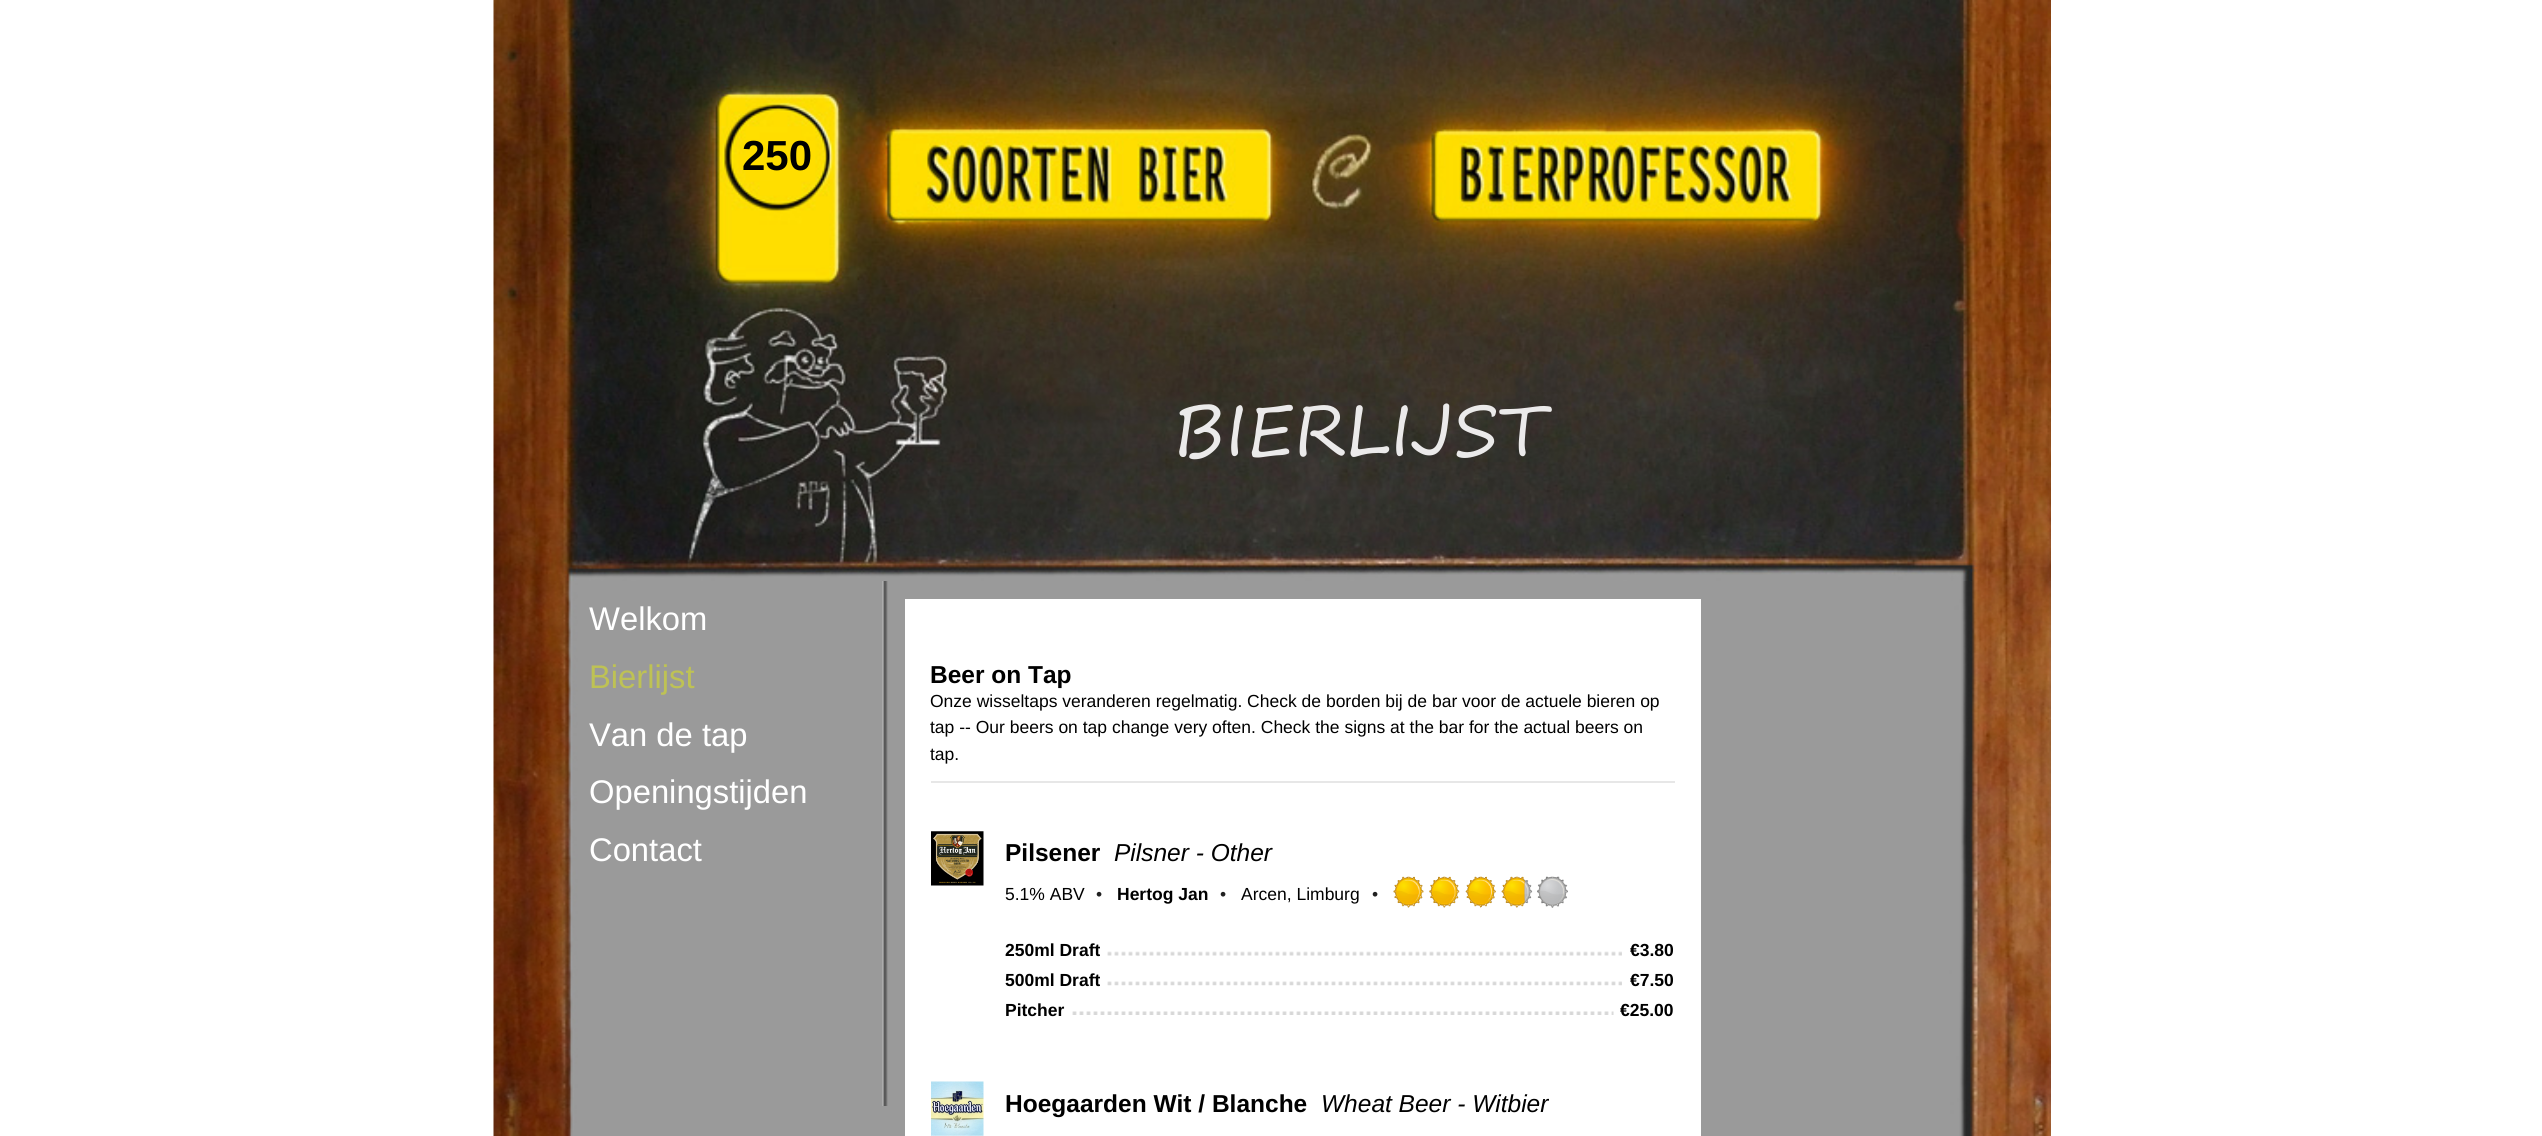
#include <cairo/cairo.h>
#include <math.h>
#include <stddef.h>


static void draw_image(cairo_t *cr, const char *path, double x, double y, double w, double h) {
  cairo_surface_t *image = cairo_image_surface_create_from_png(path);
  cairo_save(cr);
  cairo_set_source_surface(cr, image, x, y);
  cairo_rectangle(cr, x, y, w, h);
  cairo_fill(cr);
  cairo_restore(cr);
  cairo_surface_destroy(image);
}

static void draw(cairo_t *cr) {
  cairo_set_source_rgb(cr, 1, 1, 1);
  cairo_paint(cr);
  draw_image(cr, "images/1.png", 493, 0, 1558, 581);
  cairo_set_source_rgb(cr, 154 / 255.0, 154 / 255.0, 154 / 255.0);
  cairo_rectangle(cr, 580, 581, 1370, 555);
  cairo_fill(cr);
  draw_image(cr, "images/2.png", 493, 581, 1558, 555);
  draw_image(cr, "images/3.png", 882, 581, 6, 525);
  cairo_set_source_rgb(cr, 1, 1, 1);
  cairo_rectangle(cr, 905, 599, 796, 537);
  cairo_fill(cr);
  cairo_set_source_rgb(cr, 231 / 255.0, 231 / 255.0, 231 / 255.0);
  cairo_rectangle(cr, 931, 781, 744, 2);
  cairo_fill(cr);
  draw_image(cr, "images/4.png", 931, 831, 53, 55);
  draw_image(cr, "images/5.png", 1393, 876, 175, 32);
  draw_image(cr, "images/6.png", 1107, 951, 515, 5);
  draw_image(cr, "images/7.png", 1107, 981, 515, 5);
  draw_image(cr, "images/8.png", 1072, 1011, 542, 4);
  draw_image(cr, "images/9.png", 931, 1081, 53, 55);
  cairo_select_font_face(cr, "Liberation Sans", CAIRO_FONT_SLANT_NORMAL, CAIRO_FONT_WEIGHT_BOLD);
  cairo_set_font_size(cr, 42);
  cairo_set_source_rgb(cr, 0, 0, 0);
  cairo_move_to(cr, 742, 170);
  cairo_show_text(cr, "250");
  cairo_select_font_face(cr, "Liberation Sans", CAIRO_FONT_SLANT_NORMAL, CAIRO_FONT_WEIGHT_NORMAL);
  cairo_set_font_size(cr, 32.75);
  cairo_set_source_rgb(cr, 1, 1, 1);
  cairo_move_to(cr, 589, 630);
  cairo_show_text(cr, "Welkom");
  cairo_set_source_rgb(cr, 190 / 255.0, 194 / 255.0, 84 / 255.0);
  cairo_move_to(cr, 589, 688);
  cairo_show_text(cr, "Bierlijst");
  cairo_set_source_rgb(cr, 1, 1, 1);
  cairo_move_to(cr, 589, 746);
  cairo_show_text(cr, "Van de tap");
  cairo_move_to(cr, 589, 803);
  cairo_show_text(cr, "Openingstijden");
  cairo_move_to(cr, 589, 861);
  cairo_show_text(cr, "Contact");
  cairo_select_font_face(cr, "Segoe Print", CAIRO_FONT_SLANT_NORMAL, CAIRO_FONT_WEIGHT_NORMAL);
  cairo_set_font_size(cr, 70);
  cairo_set_source_rgb(cr, 235 / 255.0, 234 / 255.0, 234 / 255.0);
  cairo_move_to(cr, 1173, 455);
  cairo_show_text(cr, "BIERLIJST");
  cairo_select_font_face(cr, "Liberation Sans", CAIRO_FONT_SLANT_NORMAL, CAIRO_FONT_WEIGHT_BOLD);
  cairo_set_font_size(cr, 24.5);
  cairo_set_source_rgb(cr, 0, 0, 0);
  cairo_move_to(cr, 930, 683);
  cairo_show_text(cr, "Beer on Tap");
  cairo_select_font_face(cr, "Liberation Sans", CAIRO_FONT_SLANT_NORMAL, CAIRO_FONT_WEIGHT_NORMAL);
  cairo_set_font_size(cr, 17.5);
  cairo_move_to(cr, 930, 707);
  cairo_show_text(cr, "Onze wisseltaps veranderen regelmatig. Check de borden bij de bar voor de actuele bieren op");
  cairo_move_to(cr, 930, 733);
  cairo_show_text(cr, "tap -- Our beers on tap change very often. Check the signs at the bar for the actual beers on");
  cairo_move_to(cr, 930, 760);
  cairo_show_text(cr, "tap.");
  cairo_select_font_face(cr, "Liberation Sans", CAIRO_FONT_SLANT_NORMAL, CAIRO_FONT_WEIGHT_BOLD);
  cairo_set_font_size(cr, 24.5);
  cairo_move_to(cr, 1005, 861);
  cairo_show_text(cr, "Pilsener");
  cairo_select_font_face(cr, "Liberation Sans", CAIRO_FONT_SLANT_ITALIC, CAIRO_FONT_WEIGHT_NORMAL);
  cairo_move_to(cr, 1114, 861);
  cairo_show_text(cr, "Pilsner - Other");
  cairo_select_font_face(cr, "Liberation Sans", CAIRO_FONT_SLANT_NORMAL, CAIRO_FONT_WEIGHT_NORMAL);
  cairo_set_font_size(cr, 17.5);
  cairo_move_to(cr, 1005, 900);
  cairo_show_text(cr, "5.1% ABV");
  cairo_set_source_rgb(cr, 33 / 255.0, 33 / 255.0, 33 / 255.0);
  cairo_move_to(cr, 1096, 900);
  cairo_show_text(cr, "•");
  cairo_select_font_face(cr, "Liberation Sans", CAIRO_FONT_SLANT_NORMAL, CAIRO_FONT_WEIGHT_BOLD);
  cairo_set_source_rgb(cr, 0, 0, 0);
  cairo_move_to(cr, 1117, 900);
  cairo_show_text(cr, "Hertog Jan");
  cairo_select_font_face(cr, "Liberation Sans", CAIRO_FONT_SLANT_NORMAL, CAIRO_FONT_WEIGHT_NORMAL);
  cairo_set_source_rgb(cr, 33 / 255.0, 33 / 255.0, 33 / 255.0);
  cairo_move_to(cr, 1220, 900);
  cairo_show_text(cr, "•");
  cairo_set_source_rgb(cr, 0, 0, 0);
  cairo_move_to(cr, 1241, 900);
  cairo_show_text(cr, "Arcen, Limburg");
  cairo_set_source_rgb(cr, 33 / 255.0, 33 / 255.0, 33 / 255.0);
  cairo_move_to(cr, 1372, 900);
  cairo_show_text(cr, "•");
  cairo_select_font_face(cr, "Liberation Sans", CAIRO_FONT_SLANT_NORMAL, CAIRO_FONT_WEIGHT_BOLD);
  cairo_set_source_rgb(cr, 0, 0, 0);
  cairo_move_to(cr, 1005, 956);
  cairo_show_text(cr, "250ml Draft");
  cairo_move_to(cr, 1630, 956);
  cairo_show_text(cr, "€3.80");
  cairo_move_to(cr, 1005, 986);
  cairo_show_text(cr, "500ml Draft");
  cairo_move_to(cr, 1630, 986);
  cairo_show_text(cr, "€7.50");
  cairo_move_to(cr, 1005, 1016);
  cairo_show_text(cr, "Pitcher");
  cairo_move_to(cr, 1620, 1016);
  cairo_show_text(cr, "€25.00");
  cairo_set_font_size(cr, 24.5);
  cairo_move_to(cr, 1005, 1112);
  cairo_show_text(cr, "Hoegaarden Wit / Blanche");
  cairo_select_font_face(cr, "Liberation Sans", CAIRO_FONT_SLANT_ITALIC, CAIRO_FONT_WEIGHT_NORMAL);
  cairo_move_to(cr, 1321, 1112);
  cairo_show_text(cr, "Wheat Beer - Witbier");
}

int main(void) {
  cairo_surface_t *surface = cairo_image_surface_create(CAIRO_FORMAT_RGB24, 2542, 1136);
  cairo_t *cr = cairo_create(surface);
  cairo_font_options_t *options = cairo_font_options_create();
  cairo_font_options_set_hint_metrics(options, CAIRO_HINT_METRICS_OFF);
  cairo_font_options_set_hint_style(options, CAIRO_HINT_STYLE_NONE);
  cairo_set_font_options(cr, options);
  cairo_set_miter_limit(cr, 4);
  draw(cr);
  cairo_surface_write_to_png(surface, "out.png");
  cairo_font_options_destroy(options);
  cairo_destroy(cr);
  cairo_surface_destroy(surface);
  return 0;
}
